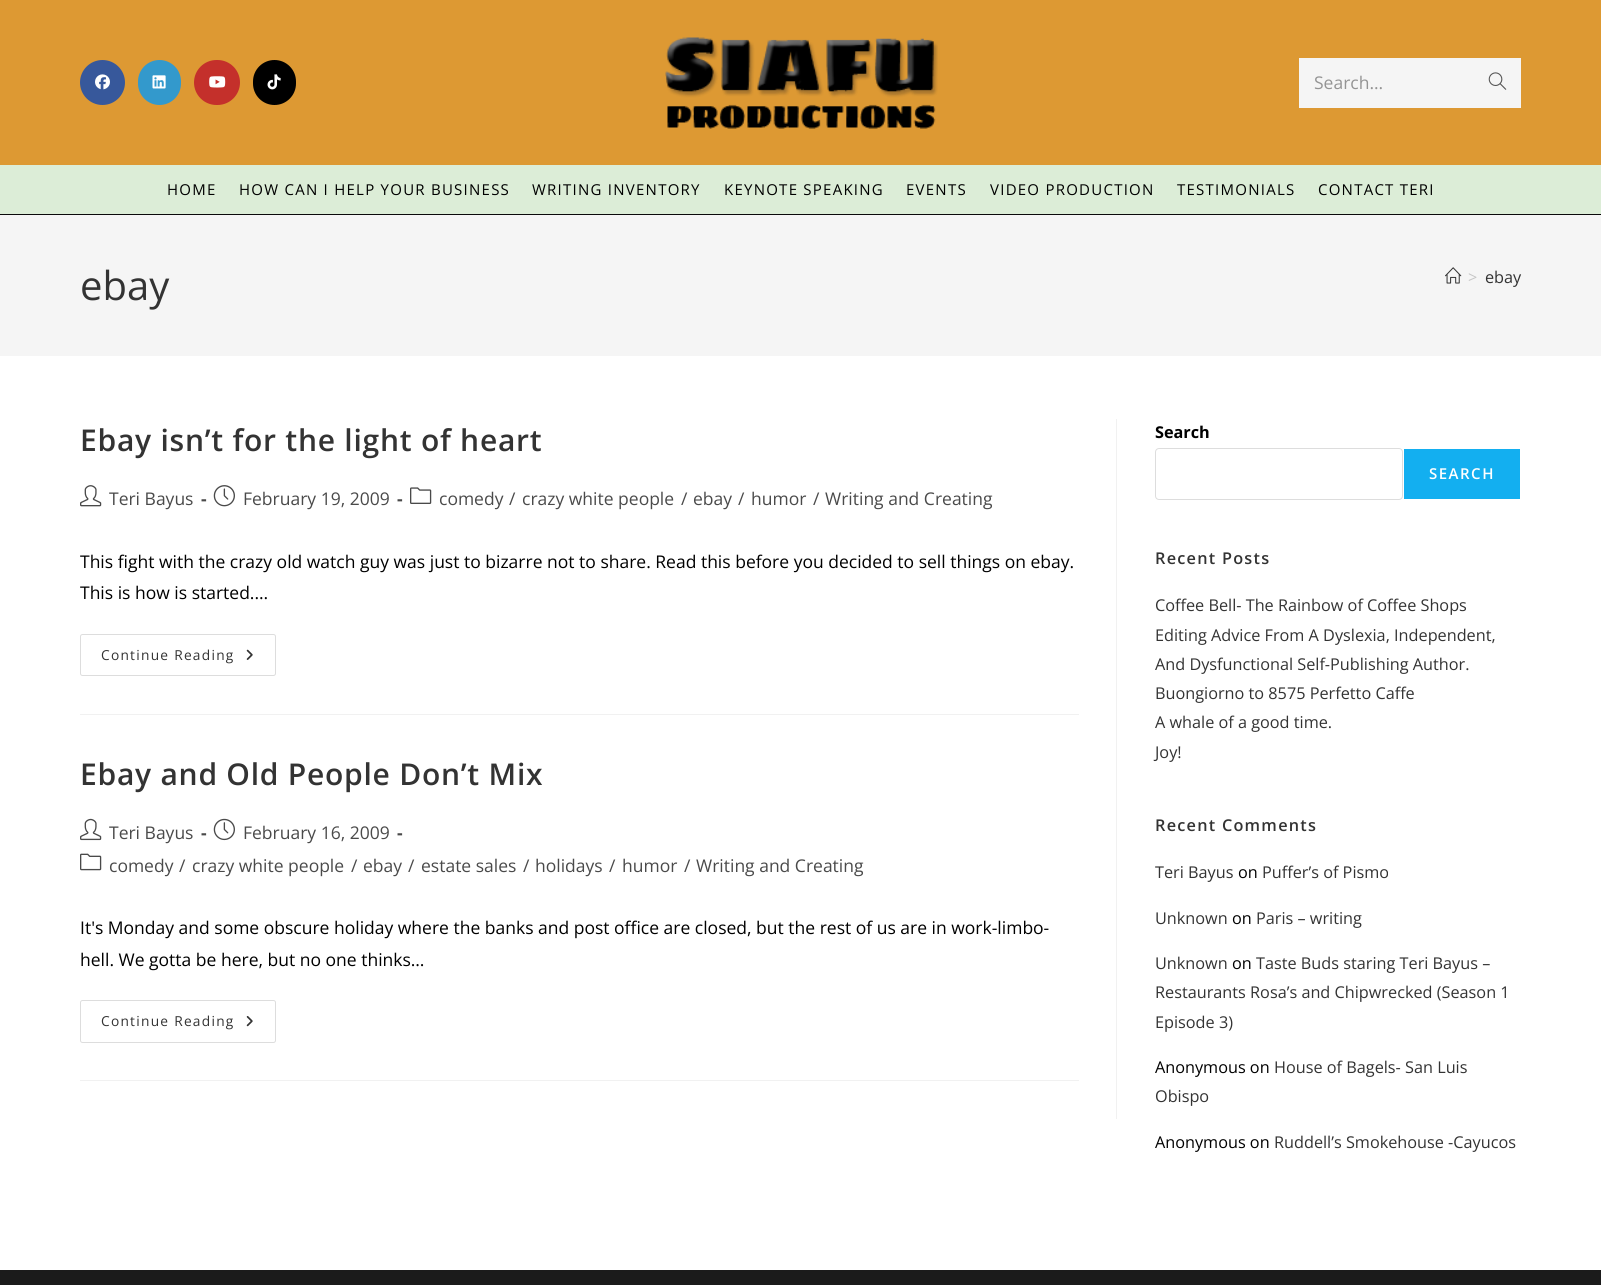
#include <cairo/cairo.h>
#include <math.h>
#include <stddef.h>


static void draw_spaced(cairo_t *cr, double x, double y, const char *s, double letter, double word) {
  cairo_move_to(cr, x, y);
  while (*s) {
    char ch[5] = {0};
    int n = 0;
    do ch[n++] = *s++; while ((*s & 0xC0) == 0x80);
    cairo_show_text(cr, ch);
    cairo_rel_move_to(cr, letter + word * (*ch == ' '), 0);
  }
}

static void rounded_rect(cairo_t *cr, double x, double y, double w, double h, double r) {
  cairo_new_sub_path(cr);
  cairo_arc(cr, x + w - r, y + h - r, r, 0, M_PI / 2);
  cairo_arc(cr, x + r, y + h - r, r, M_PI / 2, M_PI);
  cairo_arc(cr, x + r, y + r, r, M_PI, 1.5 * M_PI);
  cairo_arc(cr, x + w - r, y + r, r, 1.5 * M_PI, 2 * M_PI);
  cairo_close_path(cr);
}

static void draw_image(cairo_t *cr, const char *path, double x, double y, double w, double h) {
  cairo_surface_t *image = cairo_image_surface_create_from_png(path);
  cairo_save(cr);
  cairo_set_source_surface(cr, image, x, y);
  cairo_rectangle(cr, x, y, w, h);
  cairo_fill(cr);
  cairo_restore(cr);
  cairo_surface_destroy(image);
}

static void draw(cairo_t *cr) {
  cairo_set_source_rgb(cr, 1, 1, 1);
  cairo_paint(cr);
  cairo_set_source_rgb(cr, 10 / 255.0, 10 / 255.0, 10 / 255.0);
  cairo_rectangle(cr, 0, 214, 1601, 1);
  cairo_fill(cr);
  cairo_set_source_rgb(cr, 221 / 255.0, 153 / 255.0, 51 / 255.0);
  cairo_rectangle(cr, 0, 0, 1601, 165);
  cairo_fill(cr);
  cairo_set_source_rgb(cr, 55 / 255.0, 88 / 255.0, 155 / 255.0);
  cairo_arc(cr, 102.5, 82.5, 22.5, 0, 2 * M_PI);
  cairo_fill(cr);
  draw_image(cr, "images/1.png", 95, 74, 15, 16);
  cairo_set_source_rgb(cr, 51 / 255.0, 153 / 255.0, 204 / 255.0);
  rounded_rect(cr, 138, 60, 43, 45, 21.5);
  cairo_fill(cr);
  draw_image(cr, "images/2.png", 152, 75, 14, 14);
  cairo_set_source_rgb(cr, 196 / 255.0, 48 / 255.0, 43 / 255.0);
  rounded_rect(cr, 194, 60, 46, 45, 22.5);
  cairo_fill(cr);
  draw_image(cr, "images/3.png", 209, 76, 17, 12);
  cairo_set_source_rgb(cr, 0, 0, 0);
  rounded_rect(cr, 253, 60, 43, 45, 21.5);
  cairo_fill(cr);
  draw_image(cr, "images/4.png", 267, 74, 14, 16);
  draw_image(cr, "images/5.png", 665, 37, 273, 92);
  cairo_set_source_rgb(cr, 245 / 255.0, 245 / 255.0, 245 / 255.0);
  cairo_rectangle(cr, 1299, 58, 222, 50);
  cairo_fill(cr);
  draw_image(cr, "images/6.png", 1488, 72, 19, 18);
  cairo_set_source_rgb(cr, 220 / 255.0, 237 / 255.0, 215 / 255.0);
  cairo_rectangle(cr, 0, 165, 1601, 49);
  cairo_fill(cr);
  cairo_set_source_rgb(cr, 245 / 255.0, 245 / 255.0, 245 / 255.0);
  cairo_rectangle(cr, 0, 215, 1601, 141);
  cairo_fill(cr);
  draw_image(cr, "images/7.png", 1445, 267, 17, 17);
  cairo_set_source_rgb(cr, 241 / 255.0, 241 / 255.0, 241 / 255.0);
  cairo_rectangle(cr, 1116, 419, 1, 700);
  cairo_fill(cr);
  cairo_rectangle(cr, 80, 714, 999, 1);
  cairo_fill(cr);
  draw_image(cr, "images/8.png", 80, 485, 22, 22);
  draw_image(cr, "images/9.png", 213, 485, 22, 22);
  draw_image(cr, "images/10.png", 410, 487, 22, 17);
  rounded_rect(cr, 80.5, 634.5, 195, 41, 2);
  cairo_set_source_rgb(cr, 221 / 255.0, 221 / 255.0, 221 / 255.0);
  cairo_set_line_width(cr, 1);
  cairo_stroke(cr);
  draw_image(cr, "images/11.png", 246, 649, 7, 11);
  cairo_set_source_rgb(cr, 241 / 255.0, 241 / 255.0, 241 / 255.0);
  cairo_rectangle(cr, 80, 1080, 999, 1);
  cairo_fill(cr);
  draw_image(cr, "images/12.png", 80, 818, 22, 23);
  draw_image(cr, "images/13.png", 213, 818, 22, 23);
  draw_image(cr, "images/14.png", 80, 853, 22, 18);
  rounded_rect(cr, 80.5, 1000.5, 195, 42, 2);
  cairo_set_source_rgb(cr, 221 / 255.0, 221 / 255.0, 221 / 255.0);
  cairo_stroke(cr);
  draw_image(cr, "images/15.png", 246, 1016, 7, 11);
  rounded_rect(cr, 1155.5, 448.5, 247, 51, 3.5);
  cairo_stroke(cr);
  cairo_set_source_rgb(cr, 19 / 255.0, 175 / 255.0, 240 / 255.0);
  cairo_rectangle(cr, 1404, 449, 116, 50);
  cairo_fill(cr);
  cairo_set_source_rgb(cr, 27 / 255.0, 27 / 255.0, 27 / 255.0);
  cairo_rectangle(cr, 0, 1270, 1601, 15);
  cairo_fill(cr);
  cairo_select_font_face(cr, "Open Sans", CAIRO_FONT_SLANT_NORMAL, CAIRO_FONT_WEIGHT_NORMAL);
  cairo_set_font_size(cr, 17.5);
  cairo_set_source_rgb(cr, 148 / 255.0, 148 / 255.0, 148 / 255.0);
  cairo_move_to(cr, 1314, 89);
  cairo_show_text(cr, "Search...");
  cairo_set_font_size(cr, 15);
  cairo_set_source_rgb(cr, 0, 0, 0);
  draw_spaced(cr, 167, 195, "HOME", 1.25, 0);
  draw_spaced(cr, 239, 195, "HOW CAN I HELP YOUR BUSINESS", 1.25, 0);
  draw_spaced(cr, 532, 195, "WRITING INVENTORY", 1.25, 0);
  draw_spaced(cr, 724, 195, "KEYNOTE SPEAKING", 1.25, 0);
  draw_spaced(cr, 906, 195, "EVENTS", 1.25, 0);
  draw_spaced(cr, 990, 195, "VIDEO PRODUCTION", 1.25, 0);
  draw_spaced(cr, 1177, 195, "TESTIMONIALS", 1.25, 0);
  draw_spaced(cr, 1318, 195, "CONTACT TERI", 1.25, 0);
  cairo_set_font_size(cr, 40);
  cairo_set_source_rgb(cr, 51 / 255.0, 51 / 255.0, 51 / 255.0);
  cairo_move_to(cr, 80, 300);
  cairo_show_text(cr, "ebay");
  cairo_set_font_size(cr, 16.25);
  cairo_set_source_rgb(cr, 198 / 255.0, 198 / 255.0, 198 / 255.0);
  cairo_move_to(cr, 1468, 283);
  cairo_show_text(cr, ">");
  cairo_set_source_rgb(cr, 51 / 255.0, 51 / 255.0, 51 / 255.0);
  cairo_move_to(cr, 1485, 283);
  cairo_show_text(cr, "ebay");
  cairo_select_font_face(cr, "Open Sans SemiBold", CAIRO_FONT_SLANT_NORMAL, CAIRO_FONT_WEIGHT_NORMAL);
  cairo_set_font_size(cr, 30);
  draw_spaced(cr, 80, 451, "Ebay isn’t for the light of heart", 0.75, 0);
  cairo_select_font_face(cr, "Open Sans", CAIRO_FONT_SLANT_NORMAL, CAIRO_FONT_WEIGHT_NORMAL);
  cairo_set_font_size(cr, 17.5);
  cairo_set_source_rgb(cr, 74 / 255.0, 74 / 255.0, 74 / 255.0);
  cairo_move_to(cr, 109, 505);
  cairo_show_text(cr, "Teri Bayus");
  cairo_select_font_face(cr, "Open Sans", CAIRO_FONT_SLANT_NORMAL, CAIRO_FONT_WEIGHT_BOLD);
  cairo_move_to(cr, 201, 505);
  cairo_show_text(cr, "-");
  cairo_select_font_face(cr, "Open Sans", CAIRO_FONT_SLANT_NORMAL, CAIRO_FONT_WEIGHT_NORMAL);
  cairo_move_to(cr, 243, 505);
  cairo_show_text(cr, "February 19, 2009");
  cairo_select_font_face(cr, "Open Sans", CAIRO_FONT_SLANT_NORMAL, CAIRO_FONT_WEIGHT_BOLD);
  cairo_move_to(cr, 397, 505);
  cairo_show_text(cr, "-");
  cairo_select_font_face(cr, "Open Sans", CAIRO_FONT_SLANT_NORMAL, CAIRO_FONT_WEIGHT_NORMAL);
  cairo_move_to(cr, 439, 505);
  cairo_show_text(cr, "comedy");
  cairo_move_to(cr, 509, 505);
  cairo_show_text(cr, "/");
  cairo_move_to(cr, 522, 505);
  cairo_show_text(cr, "crazy white people");
  cairo_move_to(cr, 681, 505);
  cairo_show_text(cr, "/");
  cairo_move_to(cr, 693, 505);
  cairo_show_text(cr, "ebay");
  cairo_move_to(cr, 738, 505);
  cairo_show_text(cr, "/");
  cairo_move_to(cr, 751, 505);
  cairo_show_text(cr, "humor");
  cairo_move_to(cr, 813, 505);
  cairo_show_text(cr, "/");
  cairo_move_to(cr, 825, 505);
  cairo_show_text(cr, "Writing and Creating");
  cairo_set_source_rgb(cr, 0, 0, 0);
  cairo_move_to(cr, 80, 568);
  cairo_show_text(cr, "This fight with the crazy old watch guy was just to bizarre not to share. Read this before you decided to sell things on ebay.");
  cairo_move_to(cr, 80, 599);
  cairo_show_text(cr, "This is how is started.…");
  cairo_set_font_size(cr, 13.75);
  cairo_set_source_rgb(cr, 51 / 255.0, 51 / 255.0, 51 / 255.0);
  draw_spaced(cr, 101, 660, "Continue Reading", 1.25, 0);
  cairo_select_font_face(cr, "Open Sans SemiBold", CAIRO_FONT_SLANT_NORMAL, CAIRO_FONT_WEIGHT_NORMAL);
  cairo_set_font_size(cr, 30);
  draw_spaced(cr, 80, 785, "Ebay and Old People Don’t Mix", 0.75, 0);
  cairo_select_font_face(cr, "Open Sans", CAIRO_FONT_SLANT_NORMAL, CAIRO_FONT_WEIGHT_NORMAL);
  cairo_set_font_size(cr, 17.5);
  cairo_set_source_rgb(cr, 74 / 255.0, 74 / 255.0, 74 / 255.0);
  cairo_move_to(cr, 109, 839);
  cairo_show_text(cr, "Teri Bayus");
  cairo_select_font_face(cr, "Open Sans", CAIRO_FONT_SLANT_NORMAL, CAIRO_FONT_WEIGHT_BOLD);
  cairo_move_to(cr, 201, 839);
  cairo_show_text(cr, "-");
  cairo_select_font_face(cr, "Open Sans", CAIRO_FONT_SLANT_NORMAL, CAIRO_FONT_WEIGHT_NORMAL);
  cairo_move_to(cr, 243, 839);
  cairo_show_text(cr, "February 16, 2009");
  cairo_select_font_face(cr, "Open Sans", CAIRO_FONT_SLANT_NORMAL, CAIRO_FONT_WEIGHT_BOLD);
  cairo_move_to(cr, 397, 839);
  cairo_show_text(cr, "-");
  cairo_select_font_face(cr, "Open Sans", CAIRO_FONT_SLANT_NORMAL, CAIRO_FONT_WEIGHT_NORMAL);
  cairo_move_to(cr, 109, 872);
  cairo_show_text(cr, "comedy");
  cairo_move_to(cr, 179, 872);
  cairo_show_text(cr, "/");
  cairo_move_to(cr, 192, 872);
  cairo_show_text(cr, "crazy white people");
  cairo_move_to(cr, 351, 872);
  cairo_show_text(cr, "/");
  cairo_move_to(cr, 363, 872);
  cairo_show_text(cr, "ebay");
  cairo_move_to(cr, 408, 872);
  cairo_show_text(cr, "/");
  cairo_move_to(cr, 421, 872);
  cairo_show_text(cr, "estate sales");
  cairo_move_to(cr, 523, 872);
  cairo_show_text(cr, "/");
  cairo_move_to(cr, 535, 872);
  cairo_show_text(cr, "holidays");
  cairo_move_to(cr, 609, 872);
  cairo_show_text(cr, "/");
  cairo_move_to(cr, 622, 872);
  cairo_show_text(cr, "humor");
  cairo_move_to(cr, 684, 872);
  cairo_show_text(cr, "/");
  cairo_move_to(cr, 696, 872);
  cairo_show_text(cr, "Writing and Creating");
  cairo_set_source_rgb(cr, 0, 0, 0);
  cairo_move_to(cr, 80, 934);
  cairo_show_text(cr, "It's Monday and some obscure holiday where the banks and post office are closed, but the rest of us are in work-limbo-");
  cairo_move_to(cr, 80, 966);
  cairo_show_text(cr, "hell. We gotta be here, but no one thinks…");
  cairo_set_font_size(cr, 13.75);
  cairo_set_source_rgb(cr, 51 / 255.0, 51 / 255.0, 51 / 255.0);
  draw_spaced(cr, 101, 1026, "Continue Reading", 1.25, 0);
  cairo_select_font_face(cr, "Open Sans", CAIRO_FONT_SLANT_NORMAL, CAIRO_FONT_WEIGHT_BOLD);
  cairo_set_font_size(cr, 16.25);
  cairo_set_source_rgb(cr, 0, 0, 0);
  cairo_move_to(cr, 1155, 438);
  cairo_show_text(cr, "Search");
  cairo_select_font_face(cr, "Open Sans SemiBold", CAIRO_FONT_SLANT_NORMAL, CAIRO_FONT_WEIGHT_NORMAL);
  cairo_set_font_size(cr, 15);
  cairo_set_source_rgb(cr, 1, 1, 1);
  draw_spaced(cr, 1429, 479, "SEARCH", 1.5, 0);
  cairo_set_font_size(cr, 16.25);
  cairo_set_source_rgb(cr, 51 / 255.0, 51 / 255.0, 51 / 255.0);
  draw_spaced(cr, 1155, 564, "Recent Posts", 1.25, 0);
  cairo_select_font_face(cr, "Open Sans", CAIRO_FONT_SLANT_NORMAL, CAIRO_FONT_WEIGHT_NORMAL);
  cairo_move_to(cr, 1155, 611);
  cairo_show_text(cr, "Coffee Bell- The Rainbow of Coffee Shops");
  cairo_move_to(cr, 1155, 641);
  cairo_show_text(cr, "Editing Advice From A Dyslexia, Independent,");
  cairo_move_to(cr, 1155, 670);
  cairo_show_text(cr, "And Dysfunctional Self-Publishing Author.");
  cairo_move_to(cr, 1155, 699);
  cairo_show_text(cr, "Buongiorno to 8575 Perfetto Caffe");
  cairo_move_to(cr, 1155, 728);
  cairo_show_text(cr, "A whale of a good time.");
  cairo_move_to(cr, 1155, 758);
  cairo_show_text(cr, "Joy!");
  cairo_select_font_face(cr, "Open Sans SemiBold", CAIRO_FONT_SLANT_NORMAL, CAIRO_FONT_WEIGHT_NORMAL);
  draw_spaced(cr, 1155, 831, "Recent Comments", 1.25, 0);
  cairo_select_font_face(cr, "Open Sans", CAIRO_FONT_SLANT_NORMAL, CAIRO_FONT_WEIGHT_NORMAL);
  cairo_move_to(cr, 1155, 878);
  cairo_show_text(cr, "Teri Bayus");
  cairo_set_source_rgb(cr, 0, 0, 0);
  cairo_move_to(cr, 1238, 878);
  cairo_show_text(cr, "on");
  cairo_set_source_rgb(cr, 51 / 255.0, 51 / 255.0, 51 / 255.0);
  cairo_move_to(cr, 1262, 878);
  cairo_show_text(cr, "Puffer’s of Pismo");
  cairo_move_to(cr, 1155, 924);
  cairo_show_text(cr, "Unknown");
  cairo_set_source_rgb(cr, 0, 0, 0);
  cairo_move_to(cr, 1232, 924);
  cairo_show_text(cr, "on");
  cairo_set_source_rgb(cr, 51 / 255.0, 51 / 255.0, 51 / 255.0);
  cairo_move_to(cr, 1256, 924);
  cairo_show_text(cr, "Paris – writing");
  cairo_move_to(cr, 1155, 969);
  cairo_show_text(cr, "Unknown");
  cairo_set_source_rgb(cr, 0, 0, 0);
  cairo_move_to(cr, 1232, 969);
  cairo_show_text(cr, "on");
  cairo_set_source_rgb(cr, 51 / 255.0, 51 / 255.0, 51 / 255.0);
  cairo_move_to(cr, 1256, 969);
  cairo_show_text(cr, "Taste Buds staring Teri Bayus –");
  cairo_move_to(cr, 1155, 998);
  cairo_show_text(cr, "Restaurants Rosa’s and Chipwrecked (Season 1");
  cairo_move_to(cr, 1155, 1028);
  cairo_show_text(cr, "Episode 3)");
  cairo_set_source_rgb(cr, 0, 0, 0);
  cairo_move_to(cr, 1155, 1073);
  cairo_show_text(cr, "Anonymous on");
  cairo_set_source_rgb(cr, 51 / 255.0, 51 / 255.0, 51 / 255.0);
  cairo_move_to(cr, 1274, 1073);
  cairo_show_text(cr, "House of Bagels- San Luis");
  cairo_move_to(cr, 1155, 1102);
  cairo_show_text(cr, "Obispo");
  cairo_set_source_rgb(cr, 0, 0, 0);
  cairo_move_to(cr, 1155, 1148);
  cairo_show_text(cr, "Anonymous on");
  cairo_set_source_rgb(cr, 51 / 255.0, 51 / 255.0, 51 / 255.0);
  cairo_move_to(cr, 1274, 1148);
  cairo_show_text(cr, "Ruddell’s Smokehouse -Cayucos");
}

int main(void) {
  cairo_surface_t *surface = cairo_image_surface_create(CAIRO_FORMAT_RGB24, 1601, 1285);
  cairo_t *cr = cairo_create(surface);
  cairo_font_options_t *options = cairo_font_options_create();
  cairo_font_options_set_hint_metrics(options, CAIRO_HINT_METRICS_OFF);
  cairo_font_options_set_hint_style(options, CAIRO_HINT_STYLE_NONE);
  cairo_set_font_options(cr, options);
  cairo_set_miter_limit(cr, 4);
  draw(cr);
  cairo_surface_write_to_png(surface, "out.png");
  cairo_font_options_destroy(options);
  cairo_destroy(cr);
  cairo_surface_destroy(surface);
  return 0;
}
